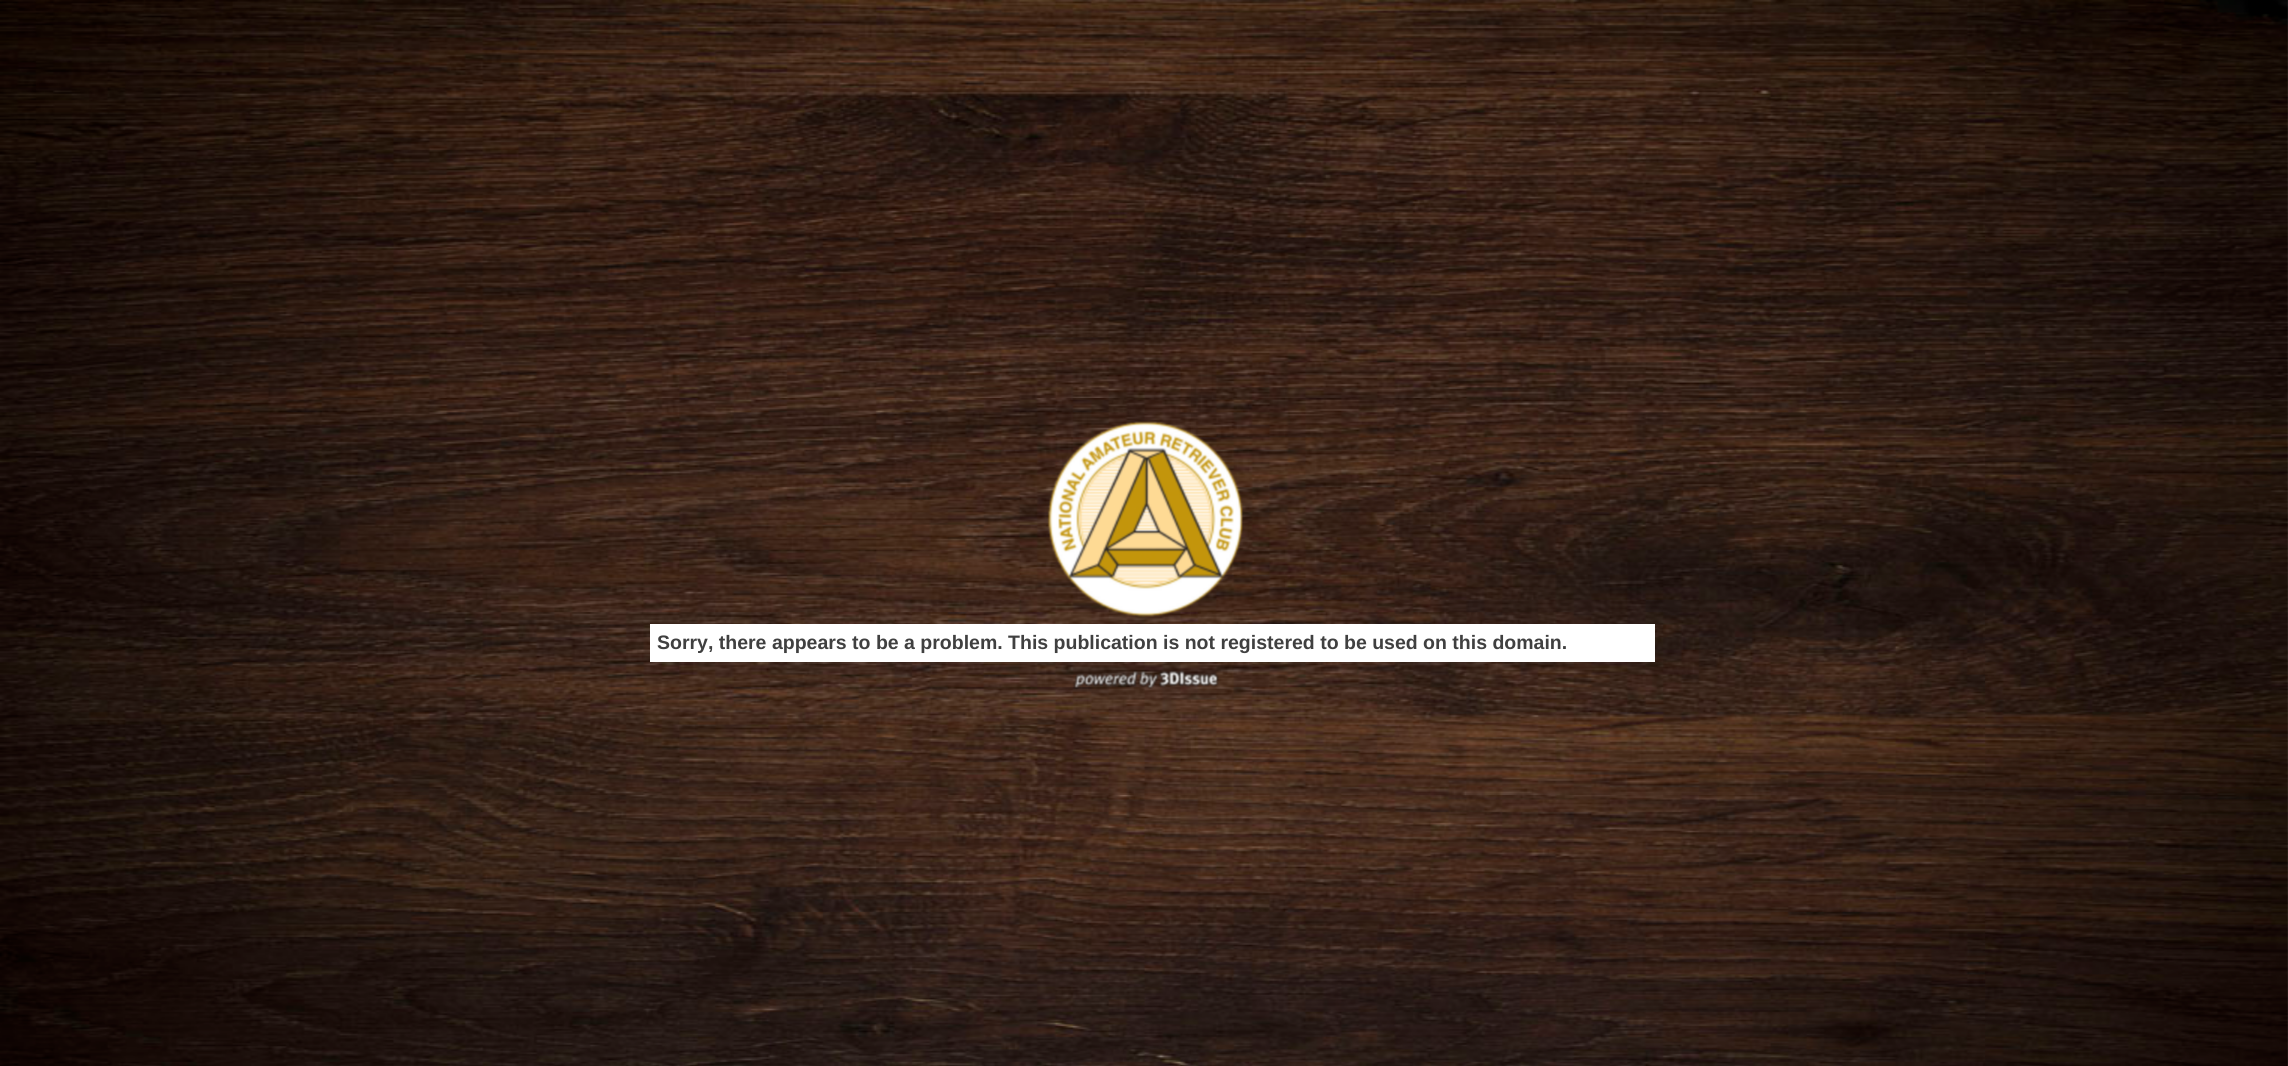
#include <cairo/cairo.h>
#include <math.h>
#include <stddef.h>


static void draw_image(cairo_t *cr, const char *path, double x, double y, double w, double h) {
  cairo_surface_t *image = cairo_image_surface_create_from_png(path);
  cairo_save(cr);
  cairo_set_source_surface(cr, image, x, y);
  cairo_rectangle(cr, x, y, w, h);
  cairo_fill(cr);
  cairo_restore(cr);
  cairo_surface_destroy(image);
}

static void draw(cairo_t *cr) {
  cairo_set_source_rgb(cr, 1, 1, 1);
  cairo_paint(cr);
  draw_image(cr, "images/1.png", 0, 0, 2288, 1066);
  draw_image(cr, "images/2.png", 1047, 421, 196, 196);
  cairo_set_source_rgb(cr, 1, 1, 1);
  cairo_rectangle(cr, 650, 624, 1005, 38);
  cairo_fill(cr);
  draw_image(cr, "images/3.png", 1073, 670, 146, 19);
  cairo_select_font_face(cr, "Liberation Sans", CAIRO_FONT_SLANT_NORMAL, CAIRO_FONT_WEIGHT_BOLD);
  cairo_set_font_size(cr, 19.5);
  cairo_set_source_rgb(cr, 64 / 255.0, 64 / 255.0, 64 / 255.0);
  cairo_move_to(cr, 657, 649);
  cairo_show_text(cr, "Sorry, there appears to be a problem. This publication is not registered to be used on this domain.");
}

int main(void) {
  cairo_surface_t *surface = cairo_image_surface_create(CAIRO_FORMAT_RGB24, 2288, 1066);
  cairo_t *cr = cairo_create(surface);
  cairo_font_options_t *options = cairo_font_options_create();
  cairo_font_options_set_hint_metrics(options, CAIRO_HINT_METRICS_OFF);
  cairo_font_options_set_hint_style(options, CAIRO_HINT_STYLE_NONE);
  cairo_set_font_options(cr, options);
  cairo_set_miter_limit(cr, 4);
  draw(cr);
  cairo_surface_write_to_png(surface, "out.png");
  cairo_font_options_destroy(options);
  cairo_destroy(cr);
  cairo_surface_destroy(surface);
  return 0;
}
